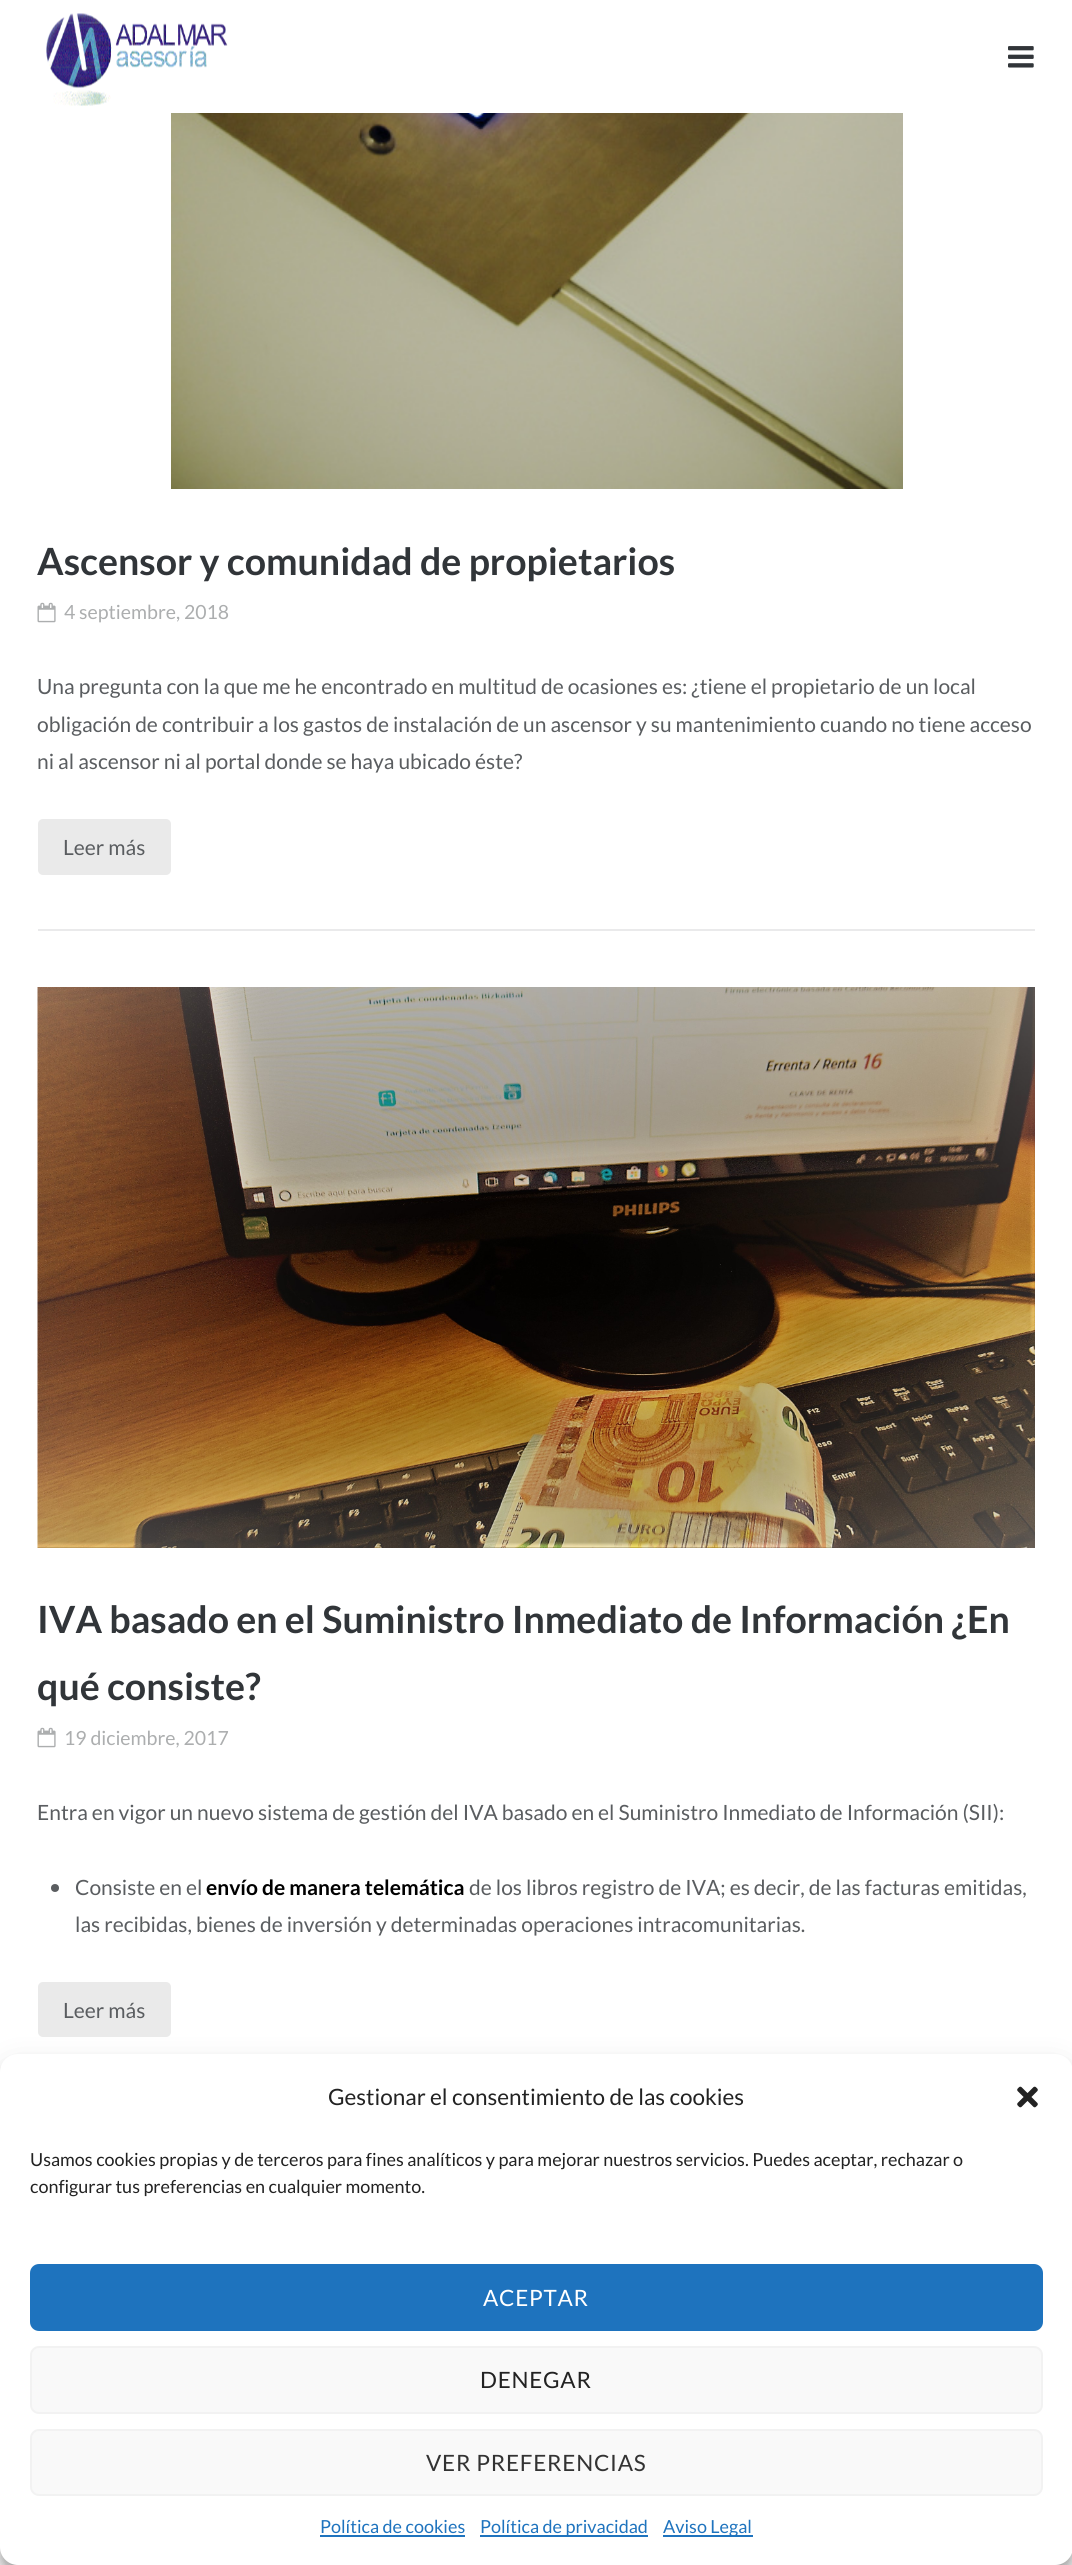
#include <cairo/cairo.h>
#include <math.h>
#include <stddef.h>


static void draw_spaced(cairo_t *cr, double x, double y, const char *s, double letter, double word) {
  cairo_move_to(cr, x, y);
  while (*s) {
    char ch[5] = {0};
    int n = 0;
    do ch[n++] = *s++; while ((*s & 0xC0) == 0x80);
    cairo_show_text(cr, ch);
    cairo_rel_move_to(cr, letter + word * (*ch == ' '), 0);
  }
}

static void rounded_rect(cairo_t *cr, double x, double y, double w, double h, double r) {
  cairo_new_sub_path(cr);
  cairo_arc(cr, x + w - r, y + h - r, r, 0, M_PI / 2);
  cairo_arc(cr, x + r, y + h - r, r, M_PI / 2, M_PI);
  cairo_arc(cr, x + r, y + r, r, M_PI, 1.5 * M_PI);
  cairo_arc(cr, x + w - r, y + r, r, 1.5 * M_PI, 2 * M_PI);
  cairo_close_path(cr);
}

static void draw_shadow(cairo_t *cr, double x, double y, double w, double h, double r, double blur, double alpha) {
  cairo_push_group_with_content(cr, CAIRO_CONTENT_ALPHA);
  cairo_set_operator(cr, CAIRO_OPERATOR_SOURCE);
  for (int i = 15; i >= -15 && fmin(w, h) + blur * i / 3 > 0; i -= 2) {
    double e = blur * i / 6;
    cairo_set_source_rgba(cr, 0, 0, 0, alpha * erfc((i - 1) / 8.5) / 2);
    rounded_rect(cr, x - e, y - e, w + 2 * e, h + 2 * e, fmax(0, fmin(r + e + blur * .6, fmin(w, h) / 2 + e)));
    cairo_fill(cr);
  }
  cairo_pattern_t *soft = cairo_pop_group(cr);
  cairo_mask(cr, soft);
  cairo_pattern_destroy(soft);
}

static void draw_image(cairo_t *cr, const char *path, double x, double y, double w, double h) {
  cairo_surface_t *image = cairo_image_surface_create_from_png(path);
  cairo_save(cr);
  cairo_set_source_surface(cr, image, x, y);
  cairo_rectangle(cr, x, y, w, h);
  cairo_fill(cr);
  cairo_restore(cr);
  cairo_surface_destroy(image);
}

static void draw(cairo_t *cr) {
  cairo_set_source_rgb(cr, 1, 1, 1);
  cairo_paint(cr);
  draw_image(cr, "images/1.png", 46, 13, 182, 94);
  draw_image(cr, "images/2.png", 1008, 46, 26, 22);
  cairo_set_source_rgb(cr, 234 / 255.0, 234 / 255.0, 235 / 255.0);
  cairo_rectangle(cr, 38, 929, 997, 2);
  cairo_fill(cr);
  draw_image(cr, "images/3.png", 171, 113, 732, 376);
  draw_image(cr, "images/4.png", 37, 602, 19, 21);
  cairo_set_source_rgb(cr, 234 / 255.0, 234 / 255.0, 234 / 255.0);
  rounded_rect(cr, 38, 819, 133, 56, 5);
  cairo_fill(cr);
  draw_image(cr, "images/5.png", 37, 987, 998, 561);
  draw_image(cr, "images/4.png", 37, 1727, 19, 21);
  cairo_set_source_rgb(cr, 90 / 255.0, 93 / 255.0, 96 / 255.0);
  cairo_arc(cr, 55, 1888, 4, 0, 2 * M_PI);
  cairo_fill(cr);
  cairo_set_source_rgb(cr, 234 / 255.0, 234 / 255.0, 234 / 255.0);
  rounded_rect(cr, 38, 1982, 133, 55, 5);
  cairo_fill(cr);
  cairo_set_source_rgb(cr, 0, 0, 0);
  draw_shadow(cr, 0, 2063, 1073, 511, 18, 4.5, 0.23);
  draw_shadow(cr, 0, 2069, 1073, 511, 18, 15, 0.19);
  cairo_set_source_rgb(cr, 1, 1, 1);
  rounded_rect(cr, 0, 2054, 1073, 511, 18);
  cairo_fill(cr);
  draw_image(cr, "images/6.png", 1017, 2086, 21, 22);
  cairo_set_source_rgb(cr, 30 / 255.0, 115 / 255.0, 190 / 255.0);
  rounded_rect(cr, 31, 2265, 1011, 65, 8);
  cairo_fill_preserve(cr);
  cairo_stroke(cr);
  cairo_set_source_rgb(cr, 249 / 255.0, 249 / 255.0, 249 / 255.0);
  rounded_rect(cr, 31, 2347, 1011, 66, 8);
  cairo_fill_preserve(cr);
  cairo_set_source_rgb(cr, 242 / 255.0, 242 / 255.0, 242 / 255.0);
  cairo_stroke(cr);
  cairo_set_source_rgb(cr, 249 / 255.0, 249 / 255.0, 249 / 255.0);
  rounded_rect(cr, 31, 2430, 1011, 65, 8);
  cairo_fill_preserve(cr);
  cairo_set_source_rgb(cr, 242 / 255.0, 242 / 255.0, 242 / 255.0);
  cairo_stroke(cr);
  cairo_set_source_rgb(cr, 30 / 255.0, 115 / 255.0, 190 / 255.0);
  cairo_rectangle(cr, 320, 2535, 145, 2);
  cairo_fill(cr);
  cairo_rectangle(cr, 480, 2535, 168, 2);
  cairo_fill(cr);
  cairo_rectangle(cr, 663, 2535, 90, 2);
  cairo_fill(cr);
  cairo_select_font_face(cr, "Lato", CAIRO_FONT_SLANT_NORMAL, CAIRO_FONT_WEIGHT_BOLD);
  cairo_set_font_size(cr, 37.5);
  cairo_set_source_rgb(cr, 49 / 255.0, 53 / 255.0, 57 / 255.0);
  cairo_move_to(cr, 37, 575);
  cairo_show_text(cr, "Ascensor y comunidad de propietarios");
  cairo_select_font_face(cr, "Lato", CAIRO_FONT_SLANT_NORMAL, CAIRO_FONT_WEIGHT_NORMAL);
  cairo_set_font_size(cr, 19.5);
  cairo_set_source_rgb(cr, 172 / 255.0, 174 / 255.0, 175 / 255.0);
  cairo_move_to(cr, 64, 619);
  cairo_show_text(cr, "4 septiembre, 2018");
  cairo_set_font_size(cr, 21);
  cairo_set_source_rgb(cr, 90 / 255.0, 93 / 255.0, 96 / 255.0);
  cairo_move_to(cr, 37, 694);
  cairo_show_text(cr, "Una pregunta con la que me he encontrado en multitud de ocasiones es: ¿tiene el propietario de un local");
  cairo_move_to(cr, 37, 732);
  cairo_show_text(cr, "obligación de contribuir a los gastos de instalación de un ascensor y su mantenimiento cuando no tiene acceso");
  cairo_move_to(cr, 37, 769);
  cairo_show_text(cr, "ni al ascensor ni al portal donde se haya ubicado éste?");
  cairo_move_to(cr, 63, 855);
  cairo_show_text(cr, "Leer más");
  cairo_select_font_face(cr, "Lato", CAIRO_FONT_SLANT_NORMAL, CAIRO_FONT_WEIGHT_BOLD);
  cairo_set_font_size(cr, 37.5);
  cairo_set_source_rgb(cr, 49 / 255.0, 53 / 255.0, 57 / 255.0);
  cairo_move_to(cr, 37, 1633);
  cairo_show_text(cr, "IVA basado en el Suministro Inmediato de Información ¿En");
  cairo_move_to(cr, 37, 1700);
  cairo_show_text(cr, "qué consiste?");
  cairo_select_font_face(cr, "Lato", CAIRO_FONT_SLANT_NORMAL, CAIRO_FONT_WEIGHT_NORMAL);
  cairo_set_font_size(cr, 19.5);
  cairo_set_source_rgb(cr, 172 / 255.0, 174 / 255.0, 175 / 255.0);
  cairo_move_to(cr, 64, 1745);
  cairo_show_text(cr, "19 diciembre, 2017");
  cairo_set_font_size(cr, 21);
  cairo_set_source_rgb(cr, 90 / 255.0, 93 / 255.0, 96 / 255.0);
  cairo_move_to(cr, 37, 1820);
  cairo_show_text(cr, "Entra en vigor un nuevo sistema de gestión del IVA basado en el Suministro Inmediato de Información (SII):");
  cairo_move_to(cr, 75, 1895);
  cairo_show_text(cr, "Consiste en el");
  cairo_select_font_face(cr, "Lato", CAIRO_FONT_SLANT_NORMAL, CAIRO_FONT_WEIGHT_BOLD);
  cairo_set_source_rgb(cr, 0, 0, 0);
  cairo_move_to(cr, 206, 1895);
  cairo_show_text(cr, "envío de manera telemática");
  cairo_select_font_face(cr, "Lato", CAIRO_FONT_SLANT_NORMAL, CAIRO_FONT_WEIGHT_NORMAL);
  cairo_set_source_rgb(cr, 90 / 255.0, 93 / 255.0, 96 / 255.0);
  cairo_move_to(cr, 469, 1895);
  cairo_show_text(cr, "de los libros registro de IVA; es decir, de las facturas emitidas,");
  cairo_move_to(cr, 75, 1932);
  cairo_show_text(cr, "las recibidas, bienes de inversión y determinadas operaciones intracomunitarias.");
  cairo_move_to(cr, 63, 2018);
  cairo_show_text(cr, "Leer más");
  cairo_set_font_size(cr, 22.5);
  cairo_set_source_rgb(cr, 34 / 255.0, 34 / 255.0, 34 / 255.0);
  cairo_move_to(cr, 328, 2105);
  cairo_show_text(cr, "Gestionar el consentimiento de las cookies");
  cairo_set_font_size(cr, 18);
  cairo_move_to(cr, 30, 2166);
  cairo_show_text(cr, "Usamos cookies propias y de terceros para fines analíticos y para mejorar nuestros servicios. Puedes aceptar, rechazar o");
  cairo_move_to(cr, 30, 2193);
  cairo_show_text(cr, "configurar tus preferencias en cualquier momento.");
  cairo_set_font_size(cr, 22.5);
  cairo_set_source_rgb(cr, 1, 1, 1);
  draw_spaced(cr, 483, 2306, "ACEPTAR", 0.75, 0);
  cairo_set_source_rgb(cr, 34 / 255.0, 34 / 255.0, 34 / 255.0);
  draw_spaced(cr, 480, 2388, "DENEGAR", 0.75, 0);
  cairo_set_source_rgb(cr, 51 / 255.0, 51 / 255.0, 51 / 255.0);
  draw_spaced(cr, 426, 2471, "VER PREFERENCIAS", 0.75, 0);
  cairo_set_font_size(cr, 18);
  cairo_set_source_rgb(cr, 30 / 255.0, 115 / 255.0, 190 / 255.0);
  cairo_move_to(cr, 320, 2533);
  cairo_show_text(cr, "Política de cookies");
  cairo_move_to(cr, 480, 2533);
  cairo_show_text(cr, "Política de privacidad");
  cairo_move_to(cr, 663, 2533);
  cairo_show_text(cr, "Aviso Legal");
}

int main(void) {
  cairo_surface_t *surface = cairo_image_surface_create(CAIRO_FORMAT_RGB24, 1072, 2565);
  cairo_t *cr = cairo_create(surface);
  cairo_font_options_t *options = cairo_font_options_create();
  cairo_font_options_set_hint_metrics(options, CAIRO_HINT_METRICS_OFF);
  cairo_font_options_set_hint_style(options, CAIRO_HINT_STYLE_NONE);
  cairo_set_font_options(cr, options);
  cairo_set_miter_limit(cr, 4);
  draw(cr);
  cairo_surface_write_to_png(surface, "out.png");
  cairo_font_options_destroy(options);
  cairo_destroy(cr);
  cairo_surface_destroy(surface);
  return 0;
}
